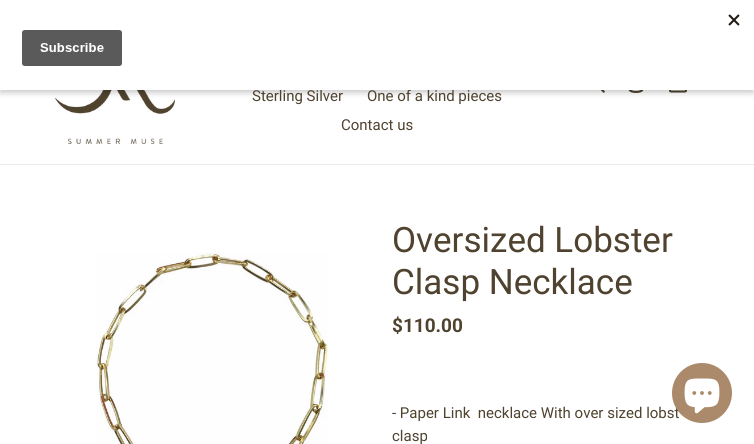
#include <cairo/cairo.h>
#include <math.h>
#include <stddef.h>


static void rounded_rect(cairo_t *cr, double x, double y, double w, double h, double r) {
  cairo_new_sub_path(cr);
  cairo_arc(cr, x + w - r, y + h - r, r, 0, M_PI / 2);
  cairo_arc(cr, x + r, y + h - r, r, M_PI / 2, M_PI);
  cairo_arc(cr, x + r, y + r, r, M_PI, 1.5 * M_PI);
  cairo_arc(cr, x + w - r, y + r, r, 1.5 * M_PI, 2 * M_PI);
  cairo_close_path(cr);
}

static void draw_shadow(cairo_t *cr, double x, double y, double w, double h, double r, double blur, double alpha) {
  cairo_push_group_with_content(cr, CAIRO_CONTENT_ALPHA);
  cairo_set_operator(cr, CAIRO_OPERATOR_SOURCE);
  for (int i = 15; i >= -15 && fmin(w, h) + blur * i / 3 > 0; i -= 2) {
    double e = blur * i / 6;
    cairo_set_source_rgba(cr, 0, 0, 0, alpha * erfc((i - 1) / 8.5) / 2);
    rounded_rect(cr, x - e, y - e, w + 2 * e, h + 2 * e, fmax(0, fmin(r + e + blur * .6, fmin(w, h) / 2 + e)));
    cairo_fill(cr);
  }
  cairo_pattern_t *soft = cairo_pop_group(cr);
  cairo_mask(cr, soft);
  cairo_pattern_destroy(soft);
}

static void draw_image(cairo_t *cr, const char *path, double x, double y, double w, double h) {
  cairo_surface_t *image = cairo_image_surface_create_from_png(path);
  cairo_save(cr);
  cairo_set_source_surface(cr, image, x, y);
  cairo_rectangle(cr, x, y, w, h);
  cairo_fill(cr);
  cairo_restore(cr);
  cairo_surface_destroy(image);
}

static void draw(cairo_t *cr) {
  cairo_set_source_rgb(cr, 1, 1, 1);
  cairo_paint(cr);
  draw_image(cr, "images/2.png", 55, 90, 120, 54);
  draw_image(cr, "images/3.png", 600, 90, 5, 3);
  draw_image(cr, "images/4.png", 628, 90, 16, 3);
  draw_image(cr, "images/5.png", 669, 90, 18, 3);
  cairo_set_source_rgb(cr, 0, 0, 0);
  draw_shadow(cr, 0, 3, 754, 90, 0, 3, 0.2);
  cairo_set_source_rgb(cr, 235 / 255.0, 235 / 255.0, 235 / 255.0);
  cairo_rectangle(cr, 0, 164, 754, 1);
  cairo_fill(cr);
  draw_image(cr, "images/6.png", 96, 252, 232, 192);
  cairo_select_font_face(cr, "Roboto", CAIRO_FONT_SLANT_NORMAL, CAIRO_FONT_WEIGHT_NORMAL);
  cairo_set_font_size(cr, 15);
  cairo_set_source_rgb(cr, 79 / 255.0, 66 / 255.0, 47 / 255.0);
  cairo_move_to(cr, 252, 101);
  cairo_show_text(cr, "Sterling Silver");
  cairo_move_to(cr, 367, 101);
  cairo_show_text(cr, "One of a kind pieces");
  cairo_set_source_rgb(cr, 1, 1, 1);
  cairo_rectangle(cr, 0, 0, 754, 90);
  cairo_fill(cr);
  draw_image(cr, "images/1.png", 22, 14, 718, 52);
  cairo_set_source_rgb(cr, 79 / 255.0, 66 / 255.0, 47 / 255.0);
  cairo_move_to(cr, 341, 130);
  cairo_show_text(cr, "Contact us");
  cairo_set_font_size(cr, 35);
  cairo_move_to(cr, 392, 252);
  cairo_show_text(cr, "Oversized Lobster");
  cairo_move_to(cr, 392, 294);
  cairo_show_text(cr, "Clasp Necklace");
  cairo_select_font_face(cr, "Roboto", CAIRO_FONT_SLANT_NORMAL, CAIRO_FONT_WEIGHT_BOLD);
  cairo_set_font_size(cr, 19);
  cairo_move_to(cr, 392, 332);
  cairo_show_text(cr, "$110.00");
  cairo_select_font_face(cr, "Roboto", CAIRO_FONT_SLANT_NORMAL, CAIRO_FONT_WEIGHT_NORMAL);
  cairo_set_font_size(cr, 15);
  cairo_move_to(cr, 392, 418);
  cairo_show_text(cr, "- Paper Link  necklace With over sized lobst");
  cairo_move_to(cr, 392, 441);
  cairo_show_text(cr, "clasp");
  cairo_set_source_rgb(cr, 171 / 255.0, 138 / 255.0, 107 / 255.0);
  cairo_new_path(cr);
  cairo_arc(cr, 702, 393, 30, 0, 2 * M_PI);
  cairo_fill(cr);
  draw_image(cr, "images/7.png", 684, 378, 36, 36);
}

int main(void) {
  cairo_surface_t *surface = cairo_image_surface_create(CAIRO_FORMAT_RGB24, 754, 444);
  cairo_t *cr = cairo_create(surface);
  cairo_font_options_t *options = cairo_font_options_create();
  cairo_font_options_set_hint_metrics(options, CAIRO_HINT_METRICS_OFF);
  cairo_font_options_set_hint_style(options, CAIRO_HINT_STYLE_NONE);
  cairo_set_font_options(cr, options);
  cairo_set_miter_limit(cr, 4);
  draw(cr);
  cairo_surface_write_to_png(surface, "out.png");
  cairo_font_options_destroy(options);
  cairo_destroy(cr);
  cairo_surface_destroy(surface);
  return 0;
}
